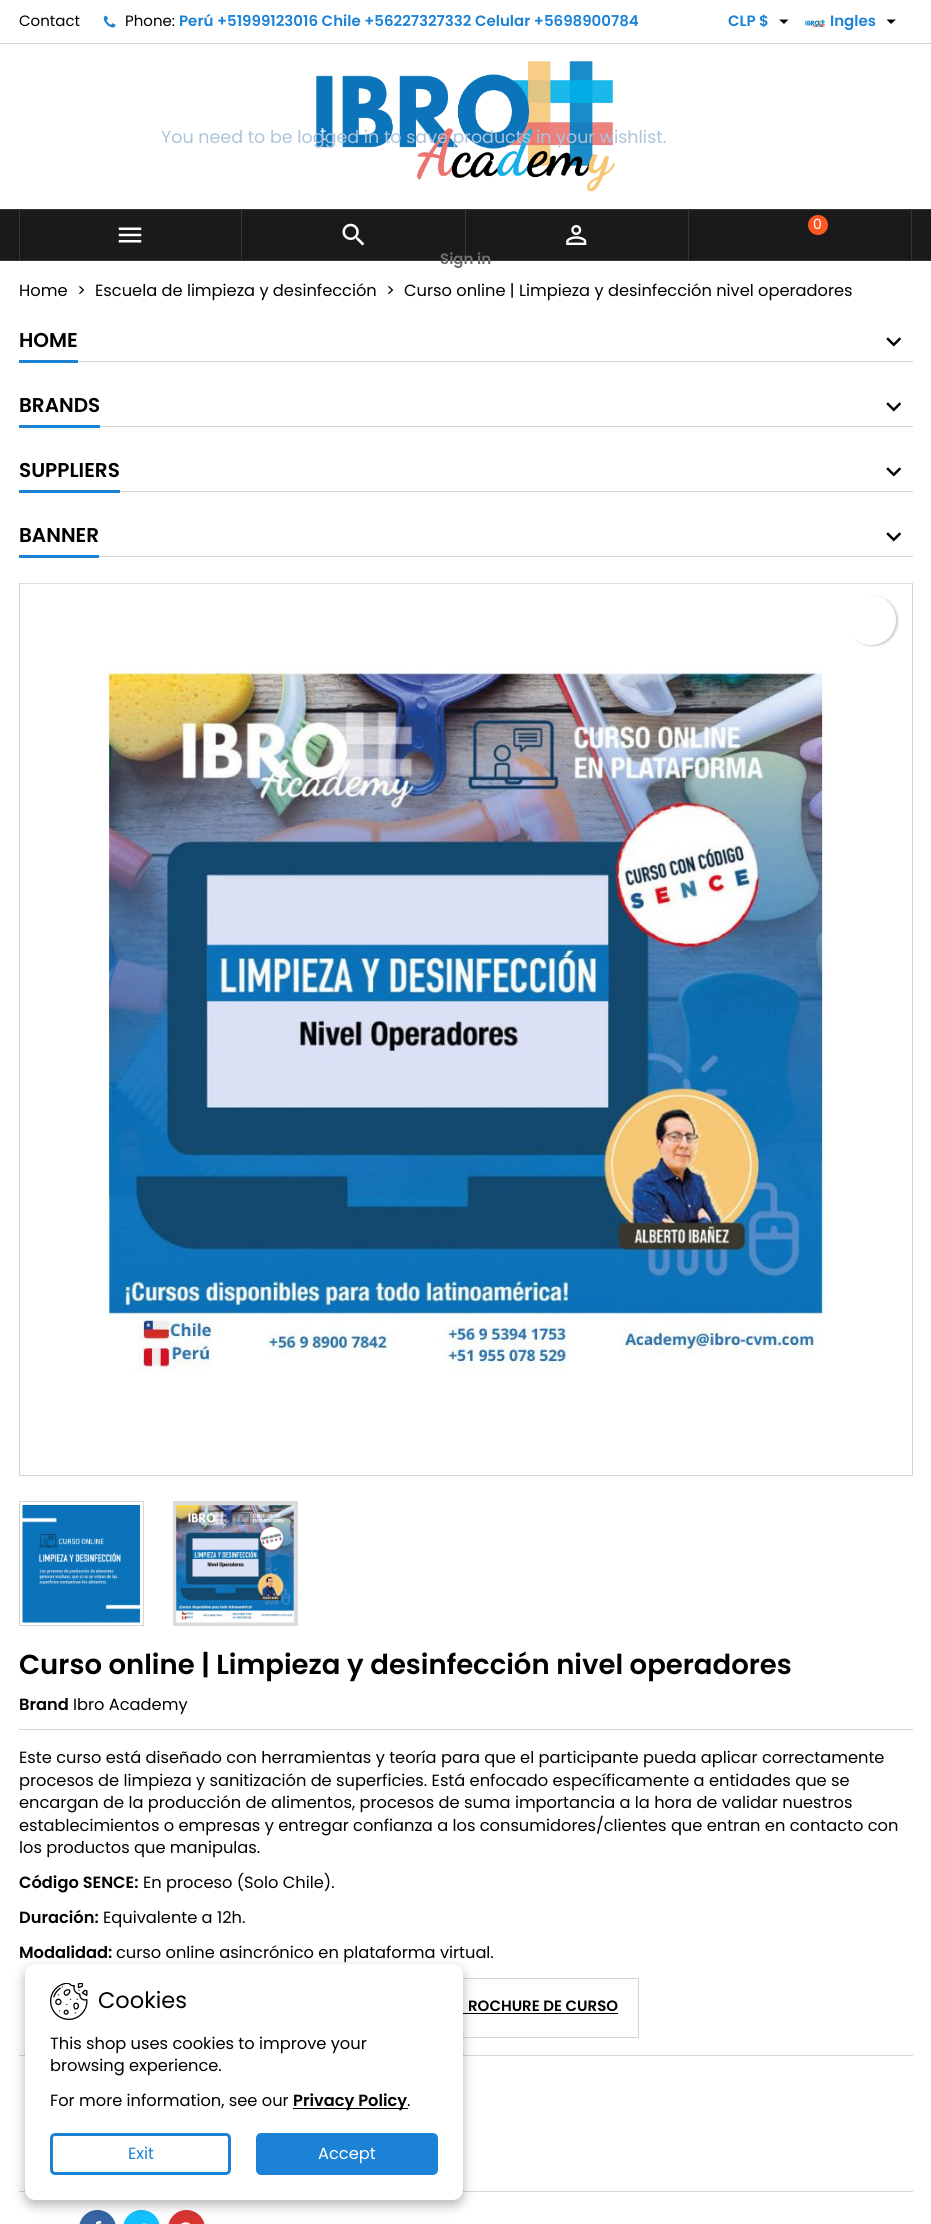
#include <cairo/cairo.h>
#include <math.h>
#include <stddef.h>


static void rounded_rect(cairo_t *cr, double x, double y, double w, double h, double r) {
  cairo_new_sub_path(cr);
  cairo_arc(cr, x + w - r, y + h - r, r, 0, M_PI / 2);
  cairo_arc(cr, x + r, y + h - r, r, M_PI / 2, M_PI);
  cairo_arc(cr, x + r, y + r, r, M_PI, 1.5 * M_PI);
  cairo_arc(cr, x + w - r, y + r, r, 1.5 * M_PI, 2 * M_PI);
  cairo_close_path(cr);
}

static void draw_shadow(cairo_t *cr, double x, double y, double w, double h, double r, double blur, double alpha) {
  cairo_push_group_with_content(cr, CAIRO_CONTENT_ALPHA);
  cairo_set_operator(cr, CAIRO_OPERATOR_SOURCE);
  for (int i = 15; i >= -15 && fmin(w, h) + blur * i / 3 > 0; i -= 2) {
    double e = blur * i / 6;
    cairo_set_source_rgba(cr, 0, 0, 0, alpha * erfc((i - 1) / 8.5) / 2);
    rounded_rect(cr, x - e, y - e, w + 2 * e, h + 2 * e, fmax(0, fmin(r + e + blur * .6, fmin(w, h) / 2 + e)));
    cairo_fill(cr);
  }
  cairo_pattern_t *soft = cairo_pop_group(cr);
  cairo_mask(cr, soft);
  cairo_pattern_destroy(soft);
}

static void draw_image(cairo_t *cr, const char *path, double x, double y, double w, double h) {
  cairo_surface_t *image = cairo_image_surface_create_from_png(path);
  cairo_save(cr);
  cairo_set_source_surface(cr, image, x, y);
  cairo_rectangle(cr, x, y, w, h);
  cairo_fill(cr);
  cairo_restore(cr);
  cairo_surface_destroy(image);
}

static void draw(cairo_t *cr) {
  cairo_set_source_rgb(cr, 1, 1, 1);
  cairo_paint(cr);
  cairo_set_source_rgb(cr, 214 / 255.0, 212 / 255.0, 212 / 255.0);
  cairo_rectangle(cr, 0, 43, 931, 1);
  cairo_fill(cr);
  draw_image(cr, "images/1.png", 103, 15, 13, 13);
  cairo_set_source_rgb(cr, 0, 0, 0);
  cairo_new_path(cr);
  cairo_move_to(cr, 779, 19.5);
  cairo_line_to(cr, 788.5, 19.5);
  cairo_line_to(cr, 784, 24);
  cairo_close_path(cr);
  cairo_fill(cr);
  draw_image(cr, "images/2.png", 805, 19, 20, 9);
  cairo_new_path(cr);
  cairo_move_to(cr, 886.5, 19.5);
  cairo_line_to(cr, 896, 19.5);
  cairo_line_to(cr, 891, 24);
  cairo_close_path(cr);
  cairo_fill(cr);
  draw_image(cr, "images/3.png", 316, 61, 299, 131);
  cairo_set_source_rgb(cr, 27 / 255.0, 26 / 255.0, 27 / 255.0);
  cairo_rectangle(cr, 0, 210, 931, 50);
  cairo_fill(cr);
  cairo_set_source_rgb(cr, 54 / 255.0, 54 / 255.0, 54 / 255.0);
  cairo_rectangle(cr, 0, 209, 931, 1);
  cairo_fill(cr);
  cairo_rectangle(cr, 0, 260, 931, 1);
  cairo_fill(cr);
  cairo_rectangle(cr, 241, 210, 1, 50);
  cairo_fill(cr);
  cairo_rectangle(cr, 19, 210, 1, 50);
  cairo_fill(cr);
  draw_image(cr, "images/4.png", 118, 227, 24, 16);
  cairo_rectangle(cr, 465, 210, 1, 50);
  cairo_fill(cr);
  draw_image(cr, "images/5.png", 342, 223, 23, 23);
  cairo_rectangle(cr, 688, 210, 1, 50);
  cairo_fill(cr);
  draw_image(cr, "images/6.png", 566, 225, 21, 20);
  cairo_rectangle(cr, 911, 210, 1, 50);
  cairo_fill(cr);
  cairo_set_source_rgb(cr, 1, 87 / 255.0, 34 / 255.0);
  cairo_arc(cr, 818, 225, 10, 0, 2 * M_PI);
  cairo_fill(cr);
  cairo_set_source_rgb(cr, 214 / 255.0, 212 / 255.0, 212 / 255.0);
  cairo_rectangle(cr, 19, 2055, 894, 1);
  cairo_fill(cr);
  cairo_rectangle(cr, 19, 2191, 894, 1);
  cairo_fill(cr);
  cairo_set_source_rgb(cr, 55 / 255.0, 101 / 255.0, 163 / 255.0);
  rounded_rect(cr, 79, 2210, 37, 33, 18.5);
  cairo_fill(cr);
  draw_image(cr, "images/12.png", 95, 2221, 7, 3);
  cairo_set_source_rgb(cr, 17 / 255.0, 193 / 255.0, 1);
  rounded_rect(cr, 123, 2210, 37, 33, 18.5);
  cairo_fill(cr);
  draw_image(cr, "images/13.png", 142, 2223, 6, 1);
  cairo_set_source_rgb(cr, 215 / 255.0, 53 / 255.0, 50 / 255.0);
  rounded_rect(cr, 168, 2210, 37, 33, 18.5);
  cairo_fill(cr);
  draw_image(cr, "images/14.png", 181, 2222, 10, 2);
  cairo_rectangle(cr, 293.5, 1978.5, 345, 59);
  cairo_set_source_rgb(cr, 214 / 255.0, 212 / 255.0, 212 / 255.0);
  cairo_set_line_width(cr, 1);
  cairo_stroke(cr);
  cairo_set_source_rgb(cr, 0, 0, 0);
  cairo_rectangle(cr, 463, 2013, 155, 1);
  cairo_fill(cr);
  cairo_set_source_rgb(cr, 0, 0, 0);
  draw_shadow(cr, 25, 1969, 438, 236, 10, 6, 0.3);
  cairo_set_source_rgb(cr, 1, 1, 1);
  rounded_rect(cr, 25, 1964, 438, 236, 10);
  cairo_fill(cr);
  draw_image(cr, "images/7.png", 50, 1983, 38, 37);
  cairo_set_source_rgb(cr, 0, 0, 0);
  cairo_rectangle(cr, 293, 2108, 115, 1);
  cairo_fill(cr);
  rounded_rect(cr, 51.5, 2134.5, 178, 39, 3.5);
  cairo_set_source_rgb(cr, 27 / 255.0, 130 / 255.0, 214 / 255.0);
  cairo_set_line_width(cr, 3);
  cairo_stroke(cr);
  rounded_rect(cr, 257.5, 2134.5, 179, 39, 3.5);
  cairo_fill_preserve(cr);
  cairo_stroke(cr);
  cairo_set_source_rgb(cr, 214 / 255.0, 212 / 255.0, 212 / 255.0);
  cairo_rectangle(cr, 78, 361, 835, 1);
  cairo_fill(cr);
  cairo_set_source_rgb(cr, 27 / 255.0, 130 / 255.0, 214 / 255.0);
  cairo_rectangle(cr, 19, 360, 59, 3);
  cairo_fill(cr);
  draw_image(cr, "images/8.png", 886, 337, 16, 10);
  cairo_set_source_rgb(cr, 214 / 255.0, 212 / 255.0, 212 / 255.0);
  cairo_rectangle(cr, 100, 426, 813, 1);
  cairo_fill(cr);
  cairo_set_source_rgb(cr, 27 / 255.0, 130 / 255.0, 214 / 255.0);
  cairo_rectangle(cr, 19, 425, 81, 3);
  cairo_fill(cr);
  draw_image(cr, "images/8.png", 886, 402, 16, 10);
  cairo_set_source_rgb(cr, 214 / 255.0, 212 / 255.0, 212 / 255.0);
  cairo_rectangle(cr, 120, 491, 793, 1);
  cairo_fill(cr);
  cairo_set_source_rgb(cr, 27 / 255.0, 130 / 255.0, 214 / 255.0);
  cairo_rectangle(cr, 19, 490, 101, 3);
  cairo_fill(cr);
  draw_image(cr, "images/8.png", 886, 467, 16, 10);
  cairo_set_source_rgb(cr, 214 / 255.0, 212 / 255.0, 212 / 255.0);
  cairo_rectangle(cr, 99, 556, 814, 1);
  cairo_fill(cr);
  cairo_set_source_rgb(cr, 27 / 255.0, 130 / 255.0, 214 / 255.0);
  cairo_rectangle(cr, 19, 555, 80, 3);
  cairo_fill(cr);
  draw_image(cr, "images/8.png", 886, 532, 16, 10);
  cairo_rectangle(cr, 19.5, 583.5, 893, 892);
  cairo_set_source_rgb(cr, 214 / 255.0, 212 / 255.0, 212 / 255.0);
  cairo_set_line_width(cr, 1);
  cairo_stroke(cr);
  draw_image(cr, "images/9.png", 20, 583, 891, 792);
  cairo_rectangle(cr, 19.5, 1501.5, 124, 124);
  cairo_stroke(cr);
  cairo_rectangle(cr, 175, 1503, 121, 121);
  cairo_set_source_rgb(cr, 219 / 255.0, 219 / 255.0, 219 / 255.0);
  cairo_set_line_width(cr, 4);
  cairo_stroke(cr);
  draw_image(cr, "images/10.png", 22, 1505, 118, 118);
  draw_image(cr, "images/11.png", 176, 1505, 118, 118);
  cairo_set_source_rgb(cr, 0, 0, 0);
  draw_shadow(cr, 848, 596, 50, 50, 25, 1, 0.2);
  cairo_set_source_rgb(cr, 1, 1, 1);
  cairo_arc(cr, 871, 620, 25, 0, 2 * M_PI);
  cairo_fill(cr);
  cairo_set_source_rgb(cr, 214 / 255.0, 212 / 255.0, 212 / 255.0);
  cairo_rectangle(cr, 19, 1729, 894, 1);
  cairo_fill(cr);
  cairo_select_font_face(cr, "Poppins", CAIRO_FONT_SLANT_NORMAL, CAIRO_FONT_WEIGHT_NORMAL);
  cairo_set_font_size(cr, 15);
  cairo_set_source_rgb(cr, 0, 0, 0);
  cairo_move_to(cr, 19, 26);
  cairo_show_text(cr, "Contact");
  cairo_move_to(cr, 125, 26);
  cairo_show_text(cr, "Phone:");
  cairo_select_font_face(cr, "Poppins SemiBold", CAIRO_FONT_SLANT_NORMAL, CAIRO_FONT_WEIGHT_NORMAL);
  cairo_set_source_rgb(cr, 27 / 255.0, 130 / 255.0, 214 / 255.0);
  cairo_move_to(cr, 179, 26);
  cairo_show_text(cr, "Perú +51999123016 Chile +56227327332 Celular +5698900784");
  cairo_move_to(cr, 728, 26);
  cairo_show_text(cr, "CLP $");
  cairo_move_to(cr, 830, 26);
  cairo_show_text(cr, "Ingles");
  cairo_select_font_face(cr, "Poppins", CAIRO_FONT_SLANT_NORMAL, CAIRO_FONT_WEIGHT_NORMAL);
  cairo_set_font_size(cr, 14);
  cairo_set_source_rgb(cr, 1, 1, 1);
  cairo_move_to(cr, 813, 229);
  cairo_show_text(cr, "0");
  cairo_set_font_size(cr, 17.5);
  cairo_set_source_rgb(cr, 233 / 255.0, 243 / 255.0, 249 / 255.0);
  cairo_move_to(cr, 320, 140);
  cairo_show_text(cr, "t");
  cairo_set_source_rgb(cr, 172 / 255.0, 195 / 255.0, 217 / 255.0);
  cairo_move_to(cr, 161, 143);
  cairo_show_text(cr, "You need to be logged in to save products in your wishlist.");
  cairo_select_font_face(cr, "Poppins SemiBold", CAIRO_FONT_SLANT_NORMAL, CAIRO_FONT_WEIGHT_NORMAL);
  cairo_set_font_size(cr, 15);
  cairo_set_source_rgb(cr, 111 / 255.0, 110 / 255.0, 111 / 255.0);
  cairo_move_to(cr, 440, 264);
  cairo_show_text(cr, "Sign in");
  cairo_select_font_face(cr, "Poppins", CAIRO_FONT_SLANT_NORMAL, CAIRO_FONT_WEIGHT_NORMAL);
  cairo_set_font_size(cr, 22.5);
  cairo_set_source_rgb(cr, 0, 0, 0);
  cairo_move_to(cr, 98, 2008);
  cairo_show_text(cr, "Cookies");
  cairo_set_font_size(cr, 16.25);
  cairo_move_to(cr, 50, 2049);
  cairo_show_text(cr, "This shop uses cookies to improve your");
  cairo_move_to(cr, 50, 2071);
  cairo_show_text(cr, "browsing experience.");
  cairo_move_to(cr, 50, 2106);
  cairo_show_text(cr, "For more information, see our");
  cairo_select_font_face(cr, "Poppins SemiBold", CAIRO_FONT_SLANT_NORMAL, CAIRO_FONT_WEIGHT_NORMAL);
  cairo_move_to(cr, 293, 2106);
  cairo_show_text(cr, "Privacy Policy");
  cairo_select_font_face(cr, "Poppins", CAIRO_FONT_SLANT_NORMAL, CAIRO_FONT_WEIGHT_NORMAL);
  cairo_move_to(cr, 407, 2106);
  cairo_show_text(cr, ".");
  cairo_set_source_rgb(cr, 27 / 255.0, 130 / 255.0, 214 / 255.0);
  cairo_move_to(cr, 128, 2159);
  cairo_show_text(cr, "Exit");
  cairo_set_source_rgb(cr, 1, 1, 1);
  cairo_move_to(cr, 318, 2159);
  cairo_show_text(cr, "Accept");
  cairo_set_source_rgb(cr, 0, 0, 0);
  cairo_move_to(cr, 19, 296);
  cairo_show_text(cr, "Home");
  cairo_move_to(cr, 77, 296);
  cairo_show_text(cr, ">");
  cairo_move_to(cr, 95, 296);
  cairo_show_text(cr, "Escuela de limpieza y desinfección");
  cairo_move_to(cr, 386, 296);
  cairo_show_text(cr, ">");
  cairo_move_to(cr, 404, 296);
  cairo_show_text(cr, "Curso online | Limpieza y desinfección nivel operadores");
  cairo_select_font_face(cr, "Poppins SemiBold", CAIRO_FONT_SLANT_NORMAL, CAIRO_FONT_WEIGHT_NORMAL);
  cairo_set_font_size(cr, 20);
  cairo_move_to(cr, 19, 347);
  cairo_show_text(cr, "HOME");
  cairo_move_to(cr, 19, 412);
  cairo_show_text(cr, "BRANDS");
  cairo_move_to(cr, 19, 477);
  cairo_show_text(cr, "SUPPLIERS");
  cairo_move_to(cr, 19, 542);
  cairo_show_text(cr, "BANNER");
  cairo_set_font_size(cr, 27.5);
  cairo_move_to(cr, 19, 1674);
  cairo_show_text(cr, "Curso online | Limpieza y desinfección nivel operadores");
  cairo_set_font_size(cr, 16.25);
  cairo_move_to(cr, 19, 1710);
  cairo_show_text(cr, "Brand");
  cairo_select_font_face(cr, "Poppins", CAIRO_FONT_SLANT_NORMAL, CAIRO_FONT_WEIGHT_NORMAL);
  cairo_move_to(cr, 73, 1710);
  cairo_show_text(cr, "Ibro Academy");
  cairo_move_to(cr, 19, 1763);
  cairo_show_text(cr, "Este curso está diseñado con herramientas y teoría para que el participante pueda aplicar correctamente");
  cairo_move_to(cr, 19, 1786);
  cairo_show_text(cr, "procesos de limpieza y sanitización de superficies. Está enfocado específicamente a entidades que se");
  cairo_move_to(cr, 19, 1808);
  cairo_show_text(cr, "encargan de la producción de alimentos, procesos de suma importancia a la hora de validar nuestros");
  cairo_move_to(cr, 19, 1831);
  cairo_show_text(cr, "establecimientos o empresas y entregar confianza a los consumidores/clientes que entran en contacto con");
  cairo_move_to(cr, 19, 1853);
  cairo_show_text(cr, "los productos que manipulas.");
  cairo_select_font_face(cr, "Poppins SemiBold", CAIRO_FONT_SLANT_NORMAL, CAIRO_FONT_WEIGHT_NORMAL);
  cairo_move_to(cr, 19, 1888);
  cairo_show_text(cr, "Código SENCE:");
  cairo_select_font_face(cr, "Poppins", CAIRO_FONT_SLANT_NORMAL, CAIRO_FONT_WEIGHT_NORMAL);
  cairo_move_to(cr, 143, 1888);
  cairo_show_text(cr, "En proceso (Solo Chile).");
  cairo_select_font_face(cr, "Poppins SemiBold", CAIRO_FONT_SLANT_NORMAL, CAIRO_FONT_WEIGHT_NORMAL);
  cairo_move_to(cr, 19, 1923);
  cairo_show_text(cr, "Duración:");
  cairo_select_font_face(cr, "Poppins", CAIRO_FONT_SLANT_NORMAL, CAIRO_FONT_WEIGHT_NORMAL);
  cairo_move_to(cr, 103, 1923);
  cairo_show_text(cr, "Equivalente a 12h.");
  cairo_select_font_face(cr, "Poppins SemiBold", CAIRO_FONT_SLANT_NORMAL, CAIRO_FONT_WEIGHT_NORMAL);
  cairo_move_to(cr, 19, 1958);
  cairo_show_text(cr, "Modalidad:");
  cairo_select_font_face(cr, "Poppins", CAIRO_FONT_SLANT_NORMAL, CAIRO_FONT_WEIGHT_NORMAL);
  cairo_move_to(cr, 116, 1958);
  cairo_show_text(cr, "curso online asincrónico en plataforma virtual.");
  cairo_select_font_face(cr, "Poppins SemiBold", CAIRO_FONT_SLANT_NORMAL, CAIRO_FONT_WEIGHT_NORMAL);
  cairo_set_font_size(cr, 15);
  cairo_move_to(cr, 468, 2011);
  cairo_show_text(cr, "ROCHURE DE CURSO");
}

int main(void) {
  cairo_surface_t *surface = cairo_image_surface_create(CAIRO_FORMAT_RGB24, 931, 2224);
  cairo_t *cr = cairo_create(surface);
  cairo_font_options_t *options = cairo_font_options_create();
  cairo_font_options_set_hint_metrics(options, CAIRO_HINT_METRICS_OFF);
  cairo_font_options_set_hint_style(options, CAIRO_HINT_STYLE_NONE);
  cairo_set_font_options(cr, options);
  cairo_set_miter_limit(cr, 4);
  draw(cr);
  cairo_surface_write_to_png(surface, "out.png");
  cairo_font_options_destroy(options);
  cairo_destroy(cr);
  cairo_surface_destroy(surface);
  return 0;
}
